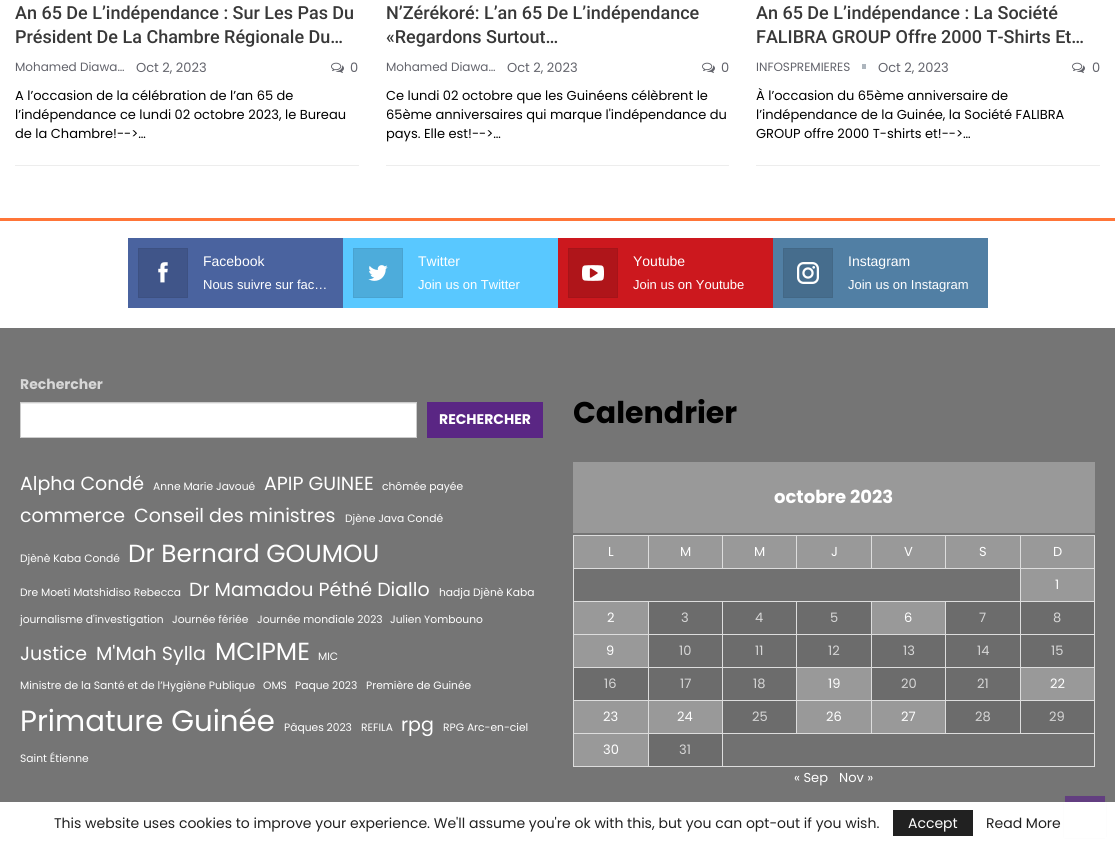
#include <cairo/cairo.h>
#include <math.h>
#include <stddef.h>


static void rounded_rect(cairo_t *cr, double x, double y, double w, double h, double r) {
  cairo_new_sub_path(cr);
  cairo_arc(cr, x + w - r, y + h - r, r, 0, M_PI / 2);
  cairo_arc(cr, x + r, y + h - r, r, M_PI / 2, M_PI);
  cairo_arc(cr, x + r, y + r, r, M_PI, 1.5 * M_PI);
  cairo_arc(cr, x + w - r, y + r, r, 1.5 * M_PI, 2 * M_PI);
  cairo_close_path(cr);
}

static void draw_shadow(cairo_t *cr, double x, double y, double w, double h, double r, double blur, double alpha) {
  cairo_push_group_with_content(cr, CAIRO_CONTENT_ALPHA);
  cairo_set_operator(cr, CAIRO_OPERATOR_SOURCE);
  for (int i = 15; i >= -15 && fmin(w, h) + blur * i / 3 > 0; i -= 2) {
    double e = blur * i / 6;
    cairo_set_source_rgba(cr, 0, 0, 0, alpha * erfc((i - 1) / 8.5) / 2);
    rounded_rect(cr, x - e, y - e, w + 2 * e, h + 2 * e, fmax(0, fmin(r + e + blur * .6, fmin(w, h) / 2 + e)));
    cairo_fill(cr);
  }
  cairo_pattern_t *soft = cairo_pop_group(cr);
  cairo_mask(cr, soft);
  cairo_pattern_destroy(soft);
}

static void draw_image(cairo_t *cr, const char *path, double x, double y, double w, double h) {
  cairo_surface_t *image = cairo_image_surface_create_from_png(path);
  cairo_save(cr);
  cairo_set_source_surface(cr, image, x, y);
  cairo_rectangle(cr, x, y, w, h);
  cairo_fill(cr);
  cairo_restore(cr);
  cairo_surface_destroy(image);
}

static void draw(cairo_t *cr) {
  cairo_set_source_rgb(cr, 1, 1, 1);
  cairo_paint(cr);
  draw_image(cr, "images/1.png", 331, 62, 13, 11);
  cairo_set_source_rgb(cr, 237 / 255.0, 237 / 255.0, 237 / 255.0);
  cairo_rectangle(cr, 15, 165, 344, 1);
  cairo_fill(cr);
  draw_image(cr, "images/1.png", 702, 62, 13, 11);
  cairo_rectangle(cr, 386, 165, 343, 1);
  cairo_fill(cr);
  cairo_set_source_rgb(cr, 173 / 255.0, 181 / 255.0, 189 / 255.0);
  cairo_rectangle(cr, 862, 64, 4, 5);
  cairo_fill(cr);
  draw_image(cr, "images/1.png", 1072, 62, 13, 11);
  cairo_set_source_rgb(cr, 237 / 255.0, 237 / 255.0, 237 / 255.0);
  cairo_rectangle(cr, 756, 165, 344, 1);
  cairo_fill(cr);
  cairo_set_source_rgb(cr, 1, 117 / 255.0, 56 / 255.0);
  cairo_rectangle(cr, 0, 218, 1115, 3);
  cairo_fill(cr);
  cairo_set_source_rgb(cr, 74 / 255.0, 99 / 255.0, 159 / 255.0);
  cairo_rectangle(cr, 128, 238, 215, 70);
  cairo_fill(cr);
  cairo_set_source_rgb(cr, 64 / 255.0, 85 / 255.0, 137 / 255.0);
  cairo_rectangle(cr, 138.5, 248.5, 49, 49);
  cairo_fill_preserve(cr);
  cairo_set_source_rgb(cr, 61 / 255.0, 81 / 255.0, 130 / 255.0);
  cairo_set_line_width(cr, 1);
  cairo_stroke(cr);
  draw_image(cr, "images/2.png", 158, 262, 10, 21);
  cairo_set_source_rgb(cr, 89 / 255.0, 200 / 255.0, 1);
  cairo_rectangle(cr, 343, 238, 215, 70);
  cairo_fill(cr);
  cairo_set_source_rgb(cr, 77 / 255.0, 172 / 255.0, 219 / 255.0);
  cairo_rectangle(cr, 353.5, 248.5, 49, 49);
  cairo_fill_preserve(cr);
  cairo_set_source_rgb(cr, 73 / 255.0, 163 / 255.0, 208 / 255.0);
  cairo_stroke(cr);
  draw_image(cr, "images/3.png", 368, 265, 20, 16);
  cairo_set_source_rgb(cr, 204 / 255.0, 24 / 255.0, 30 / 255.0);
  cairo_rectangle(cr, 558, 238, 215, 70);
  cairo_fill(cr);
  cairo_set_source_rgb(cr, 175 / 255.0, 21 / 255.0, 26 / 255.0);
  cairo_rectangle(cr, 568.5, 248.5, 49, 49);
  cairo_fill_preserve(cr);
  cairo_set_source_rgb(cr, 166 / 255.0, 20 / 255.0, 25 / 255.0);
  cairo_stroke(cr);
  draw_image(cr, "images/4.png", 582, 265, 22, 16);
  cairo_set_source_rgb(cr, 81 / 255.0, 127 / 255.0, 164 / 255.0);
  cairo_rectangle(cr, 773, 238, 215, 70);
  cairo_fill(cr);
  cairo_set_source_rgb(cr, 70 / 255.0, 109 / 255.0, 141 / 255.0);
  cairo_rectangle(cr, 783.5, 248.5, 49, 49);
  cairo_fill_preserve(cr);
  cairo_set_source_rgb(cr, 67 / 255.0, 104 / 255.0, 134 / 255.0);
  cairo_stroke(cr);
  draw_image(cr, "images/5.png", 797, 262, 22, 22);
  cairo_set_source_rgb(cr, 117 / 255.0, 117 / 255.0, 117 / 255.0);
  cairo_rectangle(cr, 0, 328, 1115, 474);
  cairo_fill(cr);
  cairo_set_source_rgb(cr, 1, 1, 1);
  cairo_rectangle(cr, 21, 404, 395, 33);
  cairo_fill(cr);
  cairo_set_source_rgb(cr, 236 / 255.0, 236 / 255.0, 236 / 255.0);
  cairo_rectangle(cr, 21, 403, 395, 1);
  cairo_fill(cr);
  cairo_rectangle(cr, 20.5, 402.5, 396, 35);
  cairo_set_source_rgb(cr, 204 / 255.0, 204 / 255.0, 204 / 255.0);
  cairo_stroke(cr);
  cairo_set_source_rgb(cr, 90 / 255.0, 38 / 255.0, 132 / 255.0);
  cairo_rectangle(cr, 427, 402, 116, 36);
  cairo_fill(cr);
  cairo_set_source_rgb(cr, 153 / 255.0, 153 / 255.0, 153 / 255.0);
  cairo_rectangle(cr, 573, 462, 522, 71);
  cairo_fill(cr);
  cairo_rectangle(cr, 574, 536, 74, 32);
  cairo_fill(cr);
  cairo_set_source_rgb(cr, 221 / 255.0, 221 / 255.0, 221 / 255.0);
  cairo_rectangle(cr, 1020, 535, 75, 1);
  cairo_fill(cr);
  cairo_rectangle(cr, 1020, 568, 75, 1);
  cairo_fill(cr);
  cairo_rectangle(cr, 1020, 601, 75, 1);
  cairo_fill(cr);
  cairo_rectangle(cr, 1020, 634, 75, 1);
  cairo_fill(cr);
  cairo_rectangle(cr, 1020, 667, 75, 1);
  cairo_fill(cr);
  cairo_rectangle(cr, 1020, 700, 75, 1);
  cairo_fill(cr);
  cairo_rectangle(cr, 722, 733, 373, 1);
  cairo_fill(cr);
  cairo_rectangle(cr, 1020, 700, 1, 34);
  cairo_fill(cr);
  cairo_rectangle(cr, 945, 700, 76, 1);
  cairo_fill(cr);
  cairo_rectangle(cr, 1020, 667, 1, 34);
  cairo_fill(cr);
  cairo_rectangle(cr, 945, 667, 76, 1);
  cairo_fill(cr);
  cairo_rectangle(cr, 1020, 634, 1, 34);
  cairo_fill(cr);
  cairo_rectangle(cr, 945, 634, 76, 1);
  cairo_fill(cr);
  cairo_rectangle(cr, 1020, 601, 1, 34);
  cairo_fill(cr);
  cairo_rectangle(cr, 945, 601, 76, 1);
  cairo_fill(cr);
  cairo_rectangle(cr, 1020, 568, 1, 34);
  cairo_fill(cr);
  cairo_rectangle(cr, 573, 568, 448, 1);
  cairo_fill(cr);
  cairo_rectangle(cr, 1020, 535, 1, 34);
  cairo_fill(cr);
  cairo_rectangle(cr, 945, 535, 76, 1);
  cairo_fill(cr);
  cairo_rectangle(cr, 945, 535, 1, 34);
  cairo_fill(cr);
  cairo_rectangle(cr, 871, 535, 75, 1);
  cairo_fill(cr);
  cairo_rectangle(cr, 871, 535, 1, 34);
  cairo_fill(cr);
  cairo_rectangle(cr, 796, 535, 76, 1);
  cairo_fill(cr);
  cairo_rectangle(cr, 796, 535, 1, 34);
  cairo_fill(cr);
  cairo_rectangle(cr, 722, 535, 75, 1);
  cairo_fill(cr);
  cairo_rectangle(cr, 722, 535, 1, 34);
  cairo_fill(cr);
  cairo_rectangle(cr, 648, 535, 75, 1);
  cairo_fill(cr);
  cairo_rectangle(cr, 648, 535, 1, 34);
  cairo_fill(cr);
  cairo_rectangle(cr, 573, 535, 76, 1);
  cairo_fill(cr);
  cairo_rectangle(cr, 945, 700, 1, 34);
  cairo_fill(cr);
  cairo_rectangle(cr, 871, 700, 75, 1);
  cairo_fill(cr);
  cairo_rectangle(cr, 945, 667, 1, 34);
  cairo_fill(cr);
  cairo_rectangle(cr, 871, 667, 75, 1);
  cairo_fill(cr);
  cairo_rectangle(cr, 945, 634, 1, 34);
  cairo_fill(cr);
  cairo_rectangle(cr, 871, 634, 75, 1);
  cairo_fill(cr);
  cairo_rectangle(cr, 945, 601, 1, 34);
  cairo_fill(cr);
  cairo_rectangle(cr, 871, 601, 75, 1);
  cairo_fill(cr);
  cairo_rectangle(cr, 871, 700, 1, 34);
  cairo_fill(cr);
  cairo_rectangle(cr, 796, 700, 76, 1);
  cairo_fill(cr);
  cairo_rectangle(cr, 871, 667, 1, 34);
  cairo_fill(cr);
  cairo_rectangle(cr, 796, 667, 76, 1);
  cairo_fill(cr);
  cairo_rectangle(cr, 871, 634, 1, 34);
  cairo_fill(cr);
  cairo_rectangle(cr, 796, 634, 76, 1);
  cairo_fill(cr);
  cairo_rectangle(cr, 871, 601, 1, 34);
  cairo_fill(cr);
  cairo_rectangle(cr, 796, 601, 76, 1);
  cairo_fill(cr);
  cairo_rectangle(cr, 796, 700, 1, 34);
  cairo_fill(cr);
  cairo_rectangle(cr, 722, 700, 75, 1);
  cairo_fill(cr);
  cairo_rectangle(cr, 796, 667, 1, 34);
  cairo_fill(cr);
  cairo_rectangle(cr, 722, 667, 75, 1);
  cairo_fill(cr);
  cairo_rectangle(cr, 796, 634, 1, 34);
  cairo_fill(cr);
  cairo_rectangle(cr, 722, 634, 75, 1);
  cairo_fill(cr);
  cairo_rectangle(cr, 796, 601, 1, 34);
  cairo_fill(cr);
  cairo_rectangle(cr, 722, 601, 75, 1);
  cairo_fill(cr);
  cairo_rectangle(cr, 1094, 733, 1, 34);
  cairo_fill(cr);
  cairo_rectangle(cr, 722, 766, 373, 1);
  cairo_fill(cr);
  cairo_rectangle(cr, 722, 733, 1, 34);
  cairo_fill(cr);
  cairo_rectangle(cr, 648, 733, 75, 1);
  cairo_fill(cr);
  cairo_rectangle(cr, 722, 700, 1, 34);
  cairo_fill(cr);
  cairo_rectangle(cr, 648, 700, 75, 1);
  cairo_fill(cr);
  cairo_rectangle(cr, 722, 667, 1, 34);
  cairo_fill(cr);
  cairo_rectangle(cr, 648, 667, 75, 1);
  cairo_fill(cr);
  cairo_rectangle(cr, 722, 634, 1, 34);
  cairo_fill(cr);
  cairo_rectangle(cr, 648, 634, 75, 1);
  cairo_fill(cr);
  cairo_rectangle(cr, 722, 601, 1, 34);
  cairo_fill(cr);
  cairo_rectangle(cr, 648, 601, 75, 1);
  cairo_fill(cr);
  cairo_rectangle(cr, 648, 766, 75, 1);
  cairo_fill(cr);
  cairo_rectangle(cr, 648, 733, 1, 34);
  cairo_fill(cr);
  cairo_rectangle(cr, 573, 733, 76, 1);
  cairo_fill(cr);
  cairo_rectangle(cr, 648, 700, 1, 34);
  cairo_fill(cr);
  cairo_rectangle(cr, 573, 700, 76, 1);
  cairo_fill(cr);
  cairo_rectangle(cr, 648, 667, 1, 34);
  cairo_fill(cr);
  cairo_rectangle(cr, 573, 667, 76, 1);
  cairo_fill(cr);
  cairo_rectangle(cr, 648, 634, 1, 34);
  cairo_fill(cr);
  cairo_rectangle(cr, 573, 634, 76, 1);
  cairo_fill(cr);
  cairo_rectangle(cr, 648, 601, 1, 34);
  cairo_fill(cr);
  cairo_rectangle(cr, 573, 601, 76, 1);
  cairo_fill(cr);
  cairo_rectangle(cr, 573, 766, 76, 1);
  cairo_fill(cr);
  cairo_rectangle(cr, 573, 733, 1, 34);
  cairo_fill(cr);
  cairo_rectangle(cr, 573, 700, 1, 34);
  cairo_fill(cr);
  cairo_rectangle(cr, 573, 667, 1, 34);
  cairo_fill(cr);
  cairo_rectangle(cr, 573, 634, 1, 34);
  cairo_fill(cr);
  cairo_rectangle(cr, 573, 601, 1, 34);
  cairo_fill(cr);
  cairo_rectangle(cr, 573, 568, 1, 34);
  cairo_fill(cr);
  cairo_rectangle(cr, 573, 535, 1, 34);
  cairo_fill(cr);
  cairo_set_source_rgb(cr, 153 / 255.0, 153 / 255.0, 153 / 255.0);
  cairo_rectangle(cr, 649, 536, 73, 32);
  cairo_fill(cr);
  cairo_rectangle(cr, 723, 536, 73, 32);
  cairo_fill(cr);
  cairo_rectangle(cr, 797, 536, 74, 32);
  cairo_fill(cr);
  cairo_rectangle(cr, 872, 536, 73, 32);
  cairo_fill(cr);
  cairo_rectangle(cr, 946, 536, 74, 32);
  cairo_fill(cr);
  cairo_rectangle(cr, 1021, 536, 73, 32);
  cairo_fill(cr);
  cairo_set_source_rgb(cr, 221 / 255.0, 221 / 255.0, 221 / 255.0);
  cairo_rectangle(cr, 1094, 700, 1, 34);
  cairo_fill(cr);
  cairo_rectangle(cr, 1094, 667, 1, 34);
  cairo_fill(cr);
  cairo_rectangle(cr, 1094, 634, 1, 34);
  cairo_fill(cr);
  cairo_rectangle(cr, 1094, 601, 1, 34);
  cairo_fill(cr);
  cairo_rectangle(cr, 1094, 568, 1, 34);
  cairo_fill(cr);
  cairo_rectangle(cr, 1094, 535, 1, 34);
  cairo_fill(cr);
  cairo_set_source_rgb(cr, 113 / 255.0, 113 / 255.0, 113 / 255.0);
  cairo_rectangle(cr, 574, 569, 446, 32);
  cairo_fill(cr);
  cairo_set_source_rgb(cr, 153 / 255.0, 153 / 255.0, 153 / 255.0);
  cairo_rectangle(cr, 1021, 569, 73, 32);
  cairo_fill(cr);
  cairo_rectangle(cr, 574, 602, 74, 32);
  cairo_fill(cr);
  cairo_set_source_rgb(cr, 108 / 255.0, 108 / 255.0, 108 / 255.0);
  cairo_rectangle(cr, 649, 602, 73, 32);
  cairo_fill(cr);
  cairo_rectangle(cr, 723, 602, 73, 32);
  cairo_fill(cr);
  cairo_rectangle(cr, 797, 602, 74, 32);
  cairo_fill(cr);
  cairo_set_source_rgb(cr, 153 / 255.0, 153 / 255.0, 153 / 255.0);
  cairo_rectangle(cr, 872, 602, 73, 32);
  cairo_fill(cr);
  cairo_set_source_rgb(cr, 108 / 255.0, 108 / 255.0, 108 / 255.0);
  cairo_rectangle(cr, 946, 602, 74, 32);
  cairo_fill(cr);
  cairo_rectangle(cr, 1021, 602, 73, 32);
  cairo_fill(cr);
  cairo_set_source_rgb(cr, 153 / 255.0, 153 / 255.0, 153 / 255.0);
  cairo_rectangle(cr, 574, 635, 74, 32);
  cairo_fill(cr);
  cairo_set_source_rgb(cr, 108 / 255.0, 108 / 255.0, 108 / 255.0);
  cairo_rectangle(cr, 649, 635, 73, 32);
  cairo_fill(cr);
  cairo_rectangle(cr, 723, 635, 73, 32);
  cairo_fill(cr);
  cairo_rectangle(cr, 797, 635, 74, 32);
  cairo_fill(cr);
  cairo_rectangle(cr, 872, 635, 73, 32);
  cairo_fill(cr);
  cairo_rectangle(cr, 946, 635, 74, 32);
  cairo_fill(cr);
  cairo_rectangle(cr, 1021, 635, 73, 32);
  cairo_fill(cr);
  cairo_rectangle(cr, 574, 668, 74, 32);
  cairo_fill(cr);
  cairo_rectangle(cr, 649, 668, 73, 32);
  cairo_fill(cr);
  cairo_rectangle(cr, 723, 668, 73, 32);
  cairo_fill(cr);
  cairo_set_source_rgb(cr, 153 / 255.0, 153 / 255.0, 153 / 255.0);
  cairo_rectangle(cr, 797, 668, 74, 32);
  cairo_fill(cr);
  cairo_set_source_rgb(cr, 108 / 255.0, 108 / 255.0, 108 / 255.0);
  cairo_rectangle(cr, 872, 668, 73, 32);
  cairo_fill(cr);
  cairo_rectangle(cr, 946, 668, 74, 32);
  cairo_fill(cr);
  cairo_set_source_rgb(cr, 153 / 255.0, 153 / 255.0, 153 / 255.0);
  cairo_rectangle(cr, 1021, 668, 73, 32);
  cairo_fill(cr);
  cairo_rectangle(cr, 574, 701, 74, 32);
  cairo_fill(cr);
  cairo_rectangle(cr, 649, 701, 73, 32);
  cairo_fill(cr);
  cairo_set_source_rgb(cr, 108 / 255.0, 108 / 255.0, 108 / 255.0);
  cairo_rectangle(cr, 723, 701, 73, 32);
  cairo_fill(cr);
  cairo_set_source_rgb(cr, 153 / 255.0, 153 / 255.0, 153 / 255.0);
  cairo_rectangle(cr, 797, 701, 74, 32);
  cairo_fill(cr);
  cairo_rectangle(cr, 872, 701, 73, 32);
  cairo_fill(cr);
  cairo_set_source_rgb(cr, 108 / 255.0, 108 / 255.0, 108 / 255.0);
  cairo_rectangle(cr, 946, 701, 74, 32);
  cairo_fill(cr);
  cairo_rectangle(cr, 1021, 701, 73, 32);
  cairo_fill(cr);
  cairo_set_source_rgb(cr, 153 / 255.0, 153 / 255.0, 153 / 255.0);
  cairo_rectangle(cr, 574, 734, 74, 32);
  cairo_fill(cr);
  cairo_set_source_rgb(cr, 108 / 255.0, 108 / 255.0, 108 / 255.0);
  cairo_rectangle(cr, 649, 734, 73, 32);
  cairo_fill(cr);
  cairo_set_source_rgb(cr, 113 / 255.0, 113 / 255.0, 113 / 255.0);
  cairo_rectangle(cr, 723, 734, 371, 32);
  cairo_fill(cr);
  cairo_set_source_rgb(cr, 35 / 255.0, 35 / 255.0, 35 / 255.0);
  draw_shadow(cr, 1065, 797, 40, 40, 0, 1, 0.09);
  cairo_set_source_rgb(cr, 1, 1, 1);
  cairo_rectangle(cr, 1064, 802, 42, 36);
  cairo_fill(cr);
  cairo_set_source_rgb(cr, 33 / 255.0, 33 / 255.0, 33 / 255.0);
  cairo_rectangle(cr, 893, 810, 80, 26);
  cairo_fill(cr);
  cairo_set_source_rgb(cr, 98 / 255.0, 62 / 255.0, 128 / 255.0);
  cairo_rectangle(cr, 1065, 796, 40, 6);
  cairo_fill(cr);
  cairo_select_font_face(cr, "Roboto Medium", CAIRO_FONT_SLANT_NORMAL, CAIRO_FONT_WEIGHT_NORMAL);
  cairo_set_font_size(cr, 18);
  cairo_set_source_rgb(cr, 56 / 255.0, 56 / 255.0, 56 / 255.0);
  cairo_move_to(cr, 15, 19);
  cairo_show_text(cr, "An 65 De L’indépendance : Sur Les Pas Du");
  cairo_move_to(cr, 15, 43);
  cairo_show_text(cr, "Président De La Chambre Régionale Du…");
  cairo_select_font_face(cr, "Poppins", CAIRO_FONT_SLANT_NORMAL, CAIRO_FONT_WEIGHT_NORMAL);
  cairo_set_font_size(cr, 12);
  cairo_set_source_rgb(cr, 98 / 255.0, 99 / 255.0, 107 / 255.0);
  cairo_move_to(cr, 15, 71);
  cairo_show_text(cr, "Mohamed Diawa…");
  cairo_set_font_size(cr, 13);
  cairo_move_to(cr, 136, 72);
  cairo_show_text(cr, "Oct 2, 2023");
  cairo_move_to(cr, 350, 72);
  cairo_show_text(cr, "0");
  cairo_set_source_rgb(cr, 0, 0, 0);
  cairo_move_to(cr, 15, 100);
  cairo_show_text(cr, "A l’occasion de la célébration de l’an 65 de");
  cairo_move_to(cr, 15, 119);
  cairo_show_text(cr, "l’indépendance ce lundi 02 octobre 2023, le Bureau");
  cairo_move_to(cr, 15, 138);
  cairo_show_text(cr, "de la Chambre!-->…");
  cairo_select_font_face(cr, "Roboto Medium", CAIRO_FONT_SLANT_NORMAL, CAIRO_FONT_WEIGHT_NORMAL);
  cairo_set_font_size(cr, 18);
  cairo_set_source_rgb(cr, 56 / 255.0, 56 / 255.0, 56 / 255.0);
  cairo_move_to(cr, 386, 19);
  cairo_show_text(cr, "N’Zérékoré: L’an 65 De L’indépendance");
  cairo_move_to(cr, 386, 43);
  cairo_show_text(cr, "«Regardons Surtout…");
  cairo_select_font_face(cr, "Poppins", CAIRO_FONT_SLANT_NORMAL, CAIRO_FONT_WEIGHT_NORMAL);
  cairo_set_font_size(cr, 12);
  cairo_set_source_rgb(cr, 98 / 255.0, 99 / 255.0, 107 / 255.0);
  cairo_move_to(cr, 386, 71);
  cairo_show_text(cr, "Mohamed Diawa…");
  cairo_set_font_size(cr, 13);
  cairo_move_to(cr, 507, 72);
  cairo_show_text(cr, "Oct 2, 2023");
  cairo_move_to(cr, 721, 72);
  cairo_show_text(cr, "0");
  cairo_set_source_rgb(cr, 0, 0, 0);
  cairo_move_to(cr, 386, 100);
  cairo_show_text(cr, "Ce lundi 02 octobre que les Guinéens célèbrent le");
  cairo_move_to(cr, 386, 119);
  cairo_show_text(cr, "65ème anniversaires qui marque l'indépendance du");
  cairo_move_to(cr, 386, 138);
  cairo_show_text(cr, "pays. Elle est!-->…");
  cairo_select_font_face(cr, "Roboto Medium", CAIRO_FONT_SLANT_NORMAL, CAIRO_FONT_WEIGHT_NORMAL);
  cairo_set_font_size(cr, 18);
  cairo_set_source_rgb(cr, 56 / 255.0, 56 / 255.0, 56 / 255.0);
  cairo_move_to(cr, 756, 19);
  cairo_show_text(cr, "An 65 De L’indépendance : La Société");
  cairo_move_to(cr, 756, 43);
  cairo_show_text(cr, "FALIBRA GROUP Offre 2000 T-Shirts Et…");
  cairo_select_font_face(cr, "Poppins", CAIRO_FONT_SLANT_NORMAL, CAIRO_FONT_WEIGHT_NORMAL);
  cairo_set_font_size(cr, 12);
  cairo_set_source_rgb(cr, 98 / 255.0, 99 / 255.0, 107 / 255.0);
  cairo_move_to(cr, 756, 71);
  cairo_show_text(cr, "INFOSPREMIERES");
  cairo_set_font_size(cr, 13);
  cairo_move_to(cr, 878, 72);
  cairo_show_text(cr, "Oct 2, 2023");
  cairo_move_to(cr, 1092, 72);
  cairo_show_text(cr, "0");
  cairo_set_source_rgb(cr, 0, 0, 0);
  cairo_move_to(cr, 756, 100);
  cairo_show_text(cr, "À l’occasion du 65ème anniversaire de");
  cairo_move_to(cr, 756, 119);
  cairo_show_text(cr, "l’indépendance de la Guinée, la Société FALIBRA");
  cairo_move_to(cr, 756, 138);
  cairo_show_text(cr, "GROUP offre 2000 T-shirts et!-->…");
  cairo_select_font_face(cr, "Liberation Sans", CAIRO_FONT_SLANT_NORMAL, CAIRO_FONT_WEIGHT_NORMAL);
  cairo_set_font_size(cr, 14);
  cairo_set_source_rgb(cr, 1, 1, 1);
  cairo_move_to(cr, 203, 266);
  cairo_show_text(cr, "Facebook");
  cairo_set_font_size(cr, 13);
  cairo_move_to(cr, 203, 289);
  cairo_show_text(cr, "Nous suivre sur fac…");
  cairo_set_font_size(cr, 14);
  cairo_move_to(cr, 418, 266);
  cairo_show_text(cr, "Twitter");
  cairo_set_font_size(cr, 13);
  cairo_move_to(cr, 418, 289);
  cairo_show_text(cr, "Join us on Twitter");
  cairo_set_font_size(cr, 14);
  cairo_move_to(cr, 633, 266);
  cairo_show_text(cr, "Youtube");
  cairo_set_font_size(cr, 13);
  cairo_move_to(cr, 633, 289);
  cairo_show_text(cr, "Join us on Youtube");
  cairo_set_font_size(cr, 14);
  cairo_move_to(cr, 848, 266);
  cairo_show_text(cr, "Instagram");
  cairo_set_font_size(cr, 13);
  cairo_move_to(cr, 848, 289);
  cairo_show_text(cr, "Join us on Instagram");
  cairo_select_font_face(cr, "Poppins", CAIRO_FONT_SLANT_NORMAL, CAIRO_FONT_WEIGHT_BOLD);
  cairo_set_font_size(cr, 14);
  cairo_set_source_rgb(cr, 215 / 255.0, 215 / 255.0, 215 / 255.0);
  cairo_move_to(cr, 20, 389);
  cairo_show_text(cr, "Rechercher");
  cairo_set_source_rgb(cr, 1, 1, 1);
  cairo_move_to(cr, 439, 424);
  cairo_show_text(cr, "RECHERCHER");
  cairo_select_font_face(cr, "Poppins", CAIRO_FONT_SLANT_NORMAL, CAIRO_FONT_WEIGHT_NORMAL);
  cairo_set_font_size(cr, 19);
  cairo_move_to(cr, 20, 490);
  cairo_show_text(cr, "Alpha Condé");
  cairo_set_font_size(cr, 10.7);
  cairo_move_to(cr, 153, 490);
  cairo_show_text(cr, "Anne Marie Javoué");
  cairo_set_font_size(cr, 19);
  cairo_move_to(cr, 264, 490);
  cairo_show_text(cr, "APIP GUINEE");
  cairo_set_font_size(cr, 10.7);
  cairo_move_to(cr, 382, 490);
  cairo_show_text(cr, "chômée payée");
  cairo_set_font_size(cr, 19);
  cairo_move_to(cr, 20, 522);
  cairo_show_text(cr, "commerce");
  cairo_move_to(cr, 134, 522);
  cairo_show_text(cr, "Conseil des ministres");
  cairo_set_font_size(cr, 10.7);
  cairo_move_to(cr, 345, 522);
  cairo_show_text(cr, "Djène Java Condé");
  cairo_move_to(cr, 20, 562);
  cairo_show_text(cr, "Djènè Kaba Condé");
  cairo_set_font_size(cr, 24.75);
  cairo_move_to(cr, 128, 562);
  cairo_show_text(cr, "Dr Bernard GOUMOU");
  cairo_set_font_size(cr, 10.7);
  cairo_move_to(cr, 20, 596);
  cairo_show_text(cr, "Dre Moeti Matshidiso Rebecca");
  cairo_set_font_size(cr, 19);
  cairo_move_to(cr, 189, 596);
  cairo_show_text(cr, "Dr Mamadou Péthé Diallo");
  cairo_set_font_size(cr, 10.7);
  cairo_move_to(cr, 439, 596);
  cairo_show_text(cr, "hadja Djènè Kaba");
  cairo_move_to(cr, 20, 623);
  cairo_show_text(cr, "journalisme d'investigation");
  cairo_move_to(cr, 172, 623);
  cairo_show_text(cr, "Journée fériée");
  cairo_move_to(cr, 257, 623);
  cairo_show_text(cr, "Journée mondiale 2023");
  cairo_move_to(cr, 390, 623);
  cairo_show_text(cr, "Julien Yombouno");
  cairo_set_font_size(cr, 19);
  cairo_move_to(cr, 20, 660);
  cairo_show_text(cr, "Justice");
  cairo_move_to(cr, 96, 660);
  cairo_show_text(cr, "M'Mah Sylla");
  cairo_set_font_size(cr, 24.75);
  cairo_move_to(cr, 215, 660);
  cairo_show_text(cr, "MCIPME");
  cairo_set_font_size(cr, 10.7);
  cairo_move_to(cr, 318, 660);
  cairo_show_text(cr, "MIC");
  cairo_move_to(cr, 20, 689);
  cairo_show_text(cr, "Ministre de la Santé et de l’Hygiène Publique");
  cairo_move_to(cr, 263, 689);
  cairo_show_text(cr, "OMS");
  cairo_move_to(cr, 295, 689);
  cairo_show_text(cr, "Paque 2023");
  cairo_move_to(cr, 366, 689);
  cairo_show_text(cr, "Première de Guinée");
  cairo_set_font_size(cr, 29.25);
  cairo_move_to(cr, 20, 731);
  cairo_show_text(cr, "Primature Guinée");
  cairo_set_font_size(cr, 10.7);
  cairo_move_to(cr, 284, 731);
  cairo_show_text(cr, "Pâques 2023");
  cairo_move_to(cr, 361, 731);
  cairo_show_text(cr, "REFILA");
  cairo_set_font_size(cr, 19);
  cairo_move_to(cr, 401, 731);
  cairo_show_text(cr, "rpg");
  cairo_set_font_size(cr, 10.7);
  cairo_move_to(cr, 443, 731);
  cairo_show_text(cr, "RPG Arc-en-ciel");
  cairo_move_to(cr, 20, 762);
  cairo_show_text(cr, "Saint Étienne");
  cairo_select_font_face(cr, "Poppins", CAIRO_FONT_SLANT_NORMAL, CAIRO_FONT_WEIGHT_BOLD);
  cairo_set_font_size(cr, 30);
  cairo_set_source_rgb(cr, 0, 0, 0);
  cairo_move_to(cr, 573, 423);
  cairo_show_text(cr, "Calendrier");
  cairo_set_font_size(cr, 18);
  cairo_set_source_rgb(cr, 1, 1, 1);
  cairo_move_to(cr, 774, 503);
  cairo_show_text(cr, "octobre 2023");
  cairo_select_font_face(cr, "Poppins", CAIRO_FONT_SLANT_NORMAL, CAIRO_FONT_WEIGHT_NORMAL);
  cairo_set_font_size(cr, 13);
  cairo_move_to(cr, 608, 556);
  cairo_show_text(cr, "L");
  cairo_move_to(cr, 680, 556);
  cairo_show_text(cr, "M");
  cairo_move_to(cr, 754, 556);
  cairo_show_text(cr, "M");
  cairo_move_to(cr, 831, 556);
  cairo_show_text(cr, "J");
  cairo_move_to(cr, 904, 556);
  cairo_show_text(cr, "V");
  cairo_move_to(cr, 979, 556);
  cairo_show_text(cr, "S");
  cairo_move_to(cr, 1053, 556);
  cairo_show_text(cr, "D");
  cairo_move_to(cr, 1055, 589);
  cairo_show_text(cr, "1");
  cairo_move_to(cr, 607, 622);
  cairo_show_text(cr, "2");
  cairo_set_source_rgb(cr, 215 / 255.0, 215 / 255.0, 215 / 255.0);
  cairo_move_to(cr, 681, 622);
  cairo_show_text(cr, "3");
  cairo_move_to(cr, 755, 622);
  cairo_show_text(cr, "4");
  cairo_move_to(cr, 830, 622);
  cairo_show_text(cr, "5");
  cairo_set_source_rgb(cr, 1, 1, 1);
  cairo_move_to(cr, 904, 622);
  cairo_show_text(cr, "6");
  cairo_set_source_rgb(cr, 215 / 255.0, 215 / 255.0, 215 / 255.0);
  cairo_move_to(cr, 979, 622);
  cairo_show_text(cr, "7");
  cairo_move_to(cr, 1053, 622);
  cairo_show_text(cr, "8");
  cairo_set_source_rgb(cr, 1, 1, 1);
  cairo_move_to(cr, 606, 655);
  cairo_show_text(cr, "9");
  cairo_set_source_rgb(cr, 215 / 255.0, 215 / 255.0, 215 / 255.0);
  cairo_move_to(cr, 679, 655);
  cairo_show_text(cr, "10");
  cairo_move_to(cr, 755, 655);
  cairo_show_text(cr, "11");
  cairo_move_to(cr, 828, 655);
  cairo_show_text(cr, "12");
  cairo_move_to(cr, 903, 655);
  cairo_show_text(cr, "13");
  cairo_move_to(cr, 977, 655);
  cairo_show_text(cr, "14");
  cairo_move_to(cr, 1051, 655);
  cairo_show_text(cr, "15");
  cairo_move_to(cr, 604, 688);
  cairo_show_text(cr, "16");
  cairo_move_to(cr, 680, 688);
  cairo_show_text(cr, "17");
  cairo_move_to(cr, 753, 688);
  cairo_show_text(cr, "18");
  cairo_set_source_rgb(cr, 1, 1, 1);
  cairo_move_to(cr, 828, 688);
  cairo_show_text(cr, "19");
  cairo_set_source_rgb(cr, 215 / 255.0, 215 / 255.0, 215 / 255.0);
  cairo_move_to(cr, 901, 688);
  cairo_show_text(cr, "20");
  cairo_move_to(cr, 977, 688);
  cairo_show_text(cr, "21");
  cairo_set_source_rgb(cr, 1, 1, 1);
  cairo_move_to(cr, 1050, 688);
  cairo_show_text(cr, "22");
  cairo_move_to(cr, 603, 721);
  cairo_show_text(cr, "23");
  cairo_move_to(cr, 677, 721);
  cairo_show_text(cr, "24");
  cairo_set_source_rgb(cr, 215 / 255.0, 215 / 255.0, 215 / 255.0);
  cairo_move_to(cr, 752, 721);
  cairo_show_text(cr, "25");
  cairo_set_source_rgb(cr, 1, 1, 1);
  cairo_move_to(cr, 826, 721);
  cairo_show_text(cr, "26");
  cairo_move_to(cr, 901, 721);
  cairo_show_text(cr, "27");
  cairo_set_source_rgb(cr, 215 / 255.0, 215 / 255.0, 215 / 255.0);
  cairo_move_to(cr, 975, 721);
  cairo_show_text(cr, "28");
  cairo_move_to(cr, 1049, 721);
  cairo_show_text(cr, "29");
  cairo_set_source_rgb(cr, 1, 1, 1);
  cairo_move_to(cr, 603, 754);
  cairo_show_text(cr, "30");
  cairo_set_source_rgb(cr, 215 / 255.0, 215 / 255.0, 215 / 255.0);
  cairo_move_to(cr, 679, 754);
  cairo_show_text(cr, "31");
  cairo_set_source_rgb(cr, 1, 1, 1);
  cairo_move_to(cr, 794, 782);
  cairo_show_text(cr, "« Sep");
  cairo_move_to(cr, 839, 782);
  cairo_show_text(cr, "Nov »");
  cairo_set_font_size(cr, 14);
  cairo_set_source_rgb(cr, 33 / 255.0, 33 / 255.0, 33 / 255.0);
  cairo_move_to(cr, 54, 828);
  cairo_show_text(cr, "This website uses cookies to improve your experience. We'll assume you're ok with this, but you can opt-out if you wish.");
  cairo_set_source_rgb(cr, 1, 1, 1);
  cairo_move_to(cr, 908, 828);
  cairo_show_text(cr, "Accept");
  cairo_set_source_rgb(cr, 33 / 255.0, 33 / 255.0, 33 / 255.0);
  cairo_move_to(cr, 986, 828);
  cairo_show_text(cr, "Read More");
}

int main(void) {
  cairo_surface_t *surface = cairo_image_surface_create(CAIRO_FORMAT_RGB24, 1115, 844);
  cairo_t *cr = cairo_create(surface);
  cairo_font_options_t *options = cairo_font_options_create();
  cairo_font_options_set_hint_metrics(options, CAIRO_HINT_METRICS_OFF);
  cairo_font_options_set_hint_style(options, CAIRO_HINT_STYLE_NONE);
  cairo_set_font_options(cr, options);
  cairo_set_miter_limit(cr, 4);
  draw(cr);
  cairo_surface_write_to_png(surface, "out.png");
  cairo_font_options_destroy(options);
  cairo_destroy(cr);
  cairo_surface_destroy(surface);
  return 0;
}
